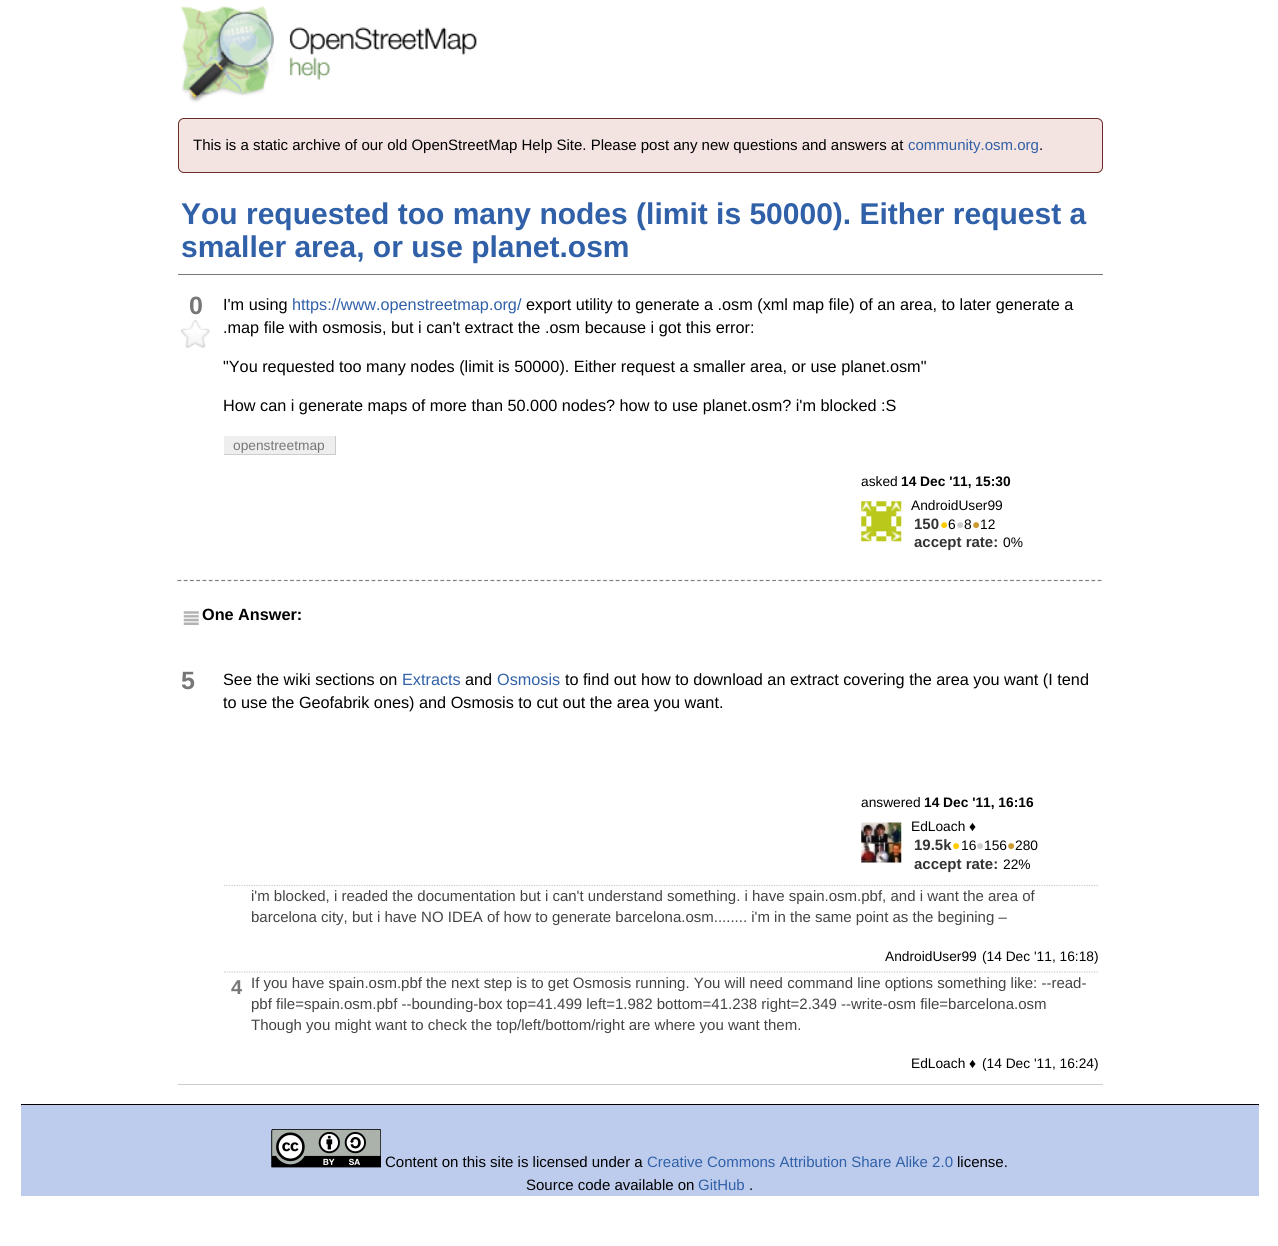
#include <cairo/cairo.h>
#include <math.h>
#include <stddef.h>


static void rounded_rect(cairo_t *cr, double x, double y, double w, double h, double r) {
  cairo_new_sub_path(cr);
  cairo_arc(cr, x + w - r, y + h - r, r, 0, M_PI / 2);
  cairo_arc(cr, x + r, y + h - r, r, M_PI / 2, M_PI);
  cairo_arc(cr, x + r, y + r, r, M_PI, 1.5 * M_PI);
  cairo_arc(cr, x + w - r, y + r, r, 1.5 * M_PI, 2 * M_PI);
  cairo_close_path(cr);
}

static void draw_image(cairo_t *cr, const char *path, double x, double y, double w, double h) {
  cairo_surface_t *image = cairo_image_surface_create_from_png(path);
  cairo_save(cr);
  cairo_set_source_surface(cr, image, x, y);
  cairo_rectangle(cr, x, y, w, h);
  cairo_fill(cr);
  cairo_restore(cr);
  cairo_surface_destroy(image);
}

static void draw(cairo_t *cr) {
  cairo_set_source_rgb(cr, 1, 1, 1);
  cairo_paint(cr);
  draw_image(cr, "images/1.png", 181, 6, 296, 97);
  cairo_set_source_rgb(cr, 243 / 255.0, 227 / 255.0, 225 / 255.0);
  rounded_rect(cr, 178.5, 118.5, 924, 54, 5.5);
  cairo_fill_preserve(cr);
  cairo_set_source_rgb(cr, 107 / 255.0, 43 / 255.0, 40 / 255.0);
  cairo_set_line_width(cr, 1);
  cairo_stroke(cr);
  cairo_set_source_rgb(cr, 119 / 255.0, 119 / 255.0, 119 / 255.0);
  cairo_rectangle(cr, 178, 274, 925, 1);
  cairo_fill(cr);
  draw_image(cr, "images/2.png", 181, 320, 29, 28);
  cairo_set_source_rgb(cr, 238 / 255.0, 238 / 255.0, 238 / 255.0);
  cairo_rectangle(cr, 224, 436, 111, 18);
  cairo_fill(cr);
  cairo_set_source_rgb(cr, 204 / 255.0, 204 / 255.0, 204 / 255.0);
  cairo_rectangle(cr, 335, 436, 1, 19);
  cairo_fill(cr);
  cairo_rectangle(cr, 224, 454, 112, 1);
  cairo_fill(cr);
  draw_image(cr, "images/3.png", 861, 501, 41, 41);
  cairo_new_path(cr);
  cairo_move_to(cr, 177.5, 580.5);
  cairo_line_to(cr, 1102.5, 580.5);
  cairo_set_source_rgb(cr, 128 / 255.0, 128 / 255.0, 128 / 255.0);
  cairo_set_line_width(cr, 1.2);
  cairo_set_dash(cr, (double[]){3.75, 2.51}, 2, 0);
  cairo_stroke(cr);
  draw_image(cr, "images/4.png", 183, 611, 16, 14);
  cairo_set_source_rgb(cr, 204 / 255.0, 204 / 255.0, 206 / 255.0);
  cairo_rectangle(cr, 178, 1084, 925, 1);
  cairo_fill(cr);
  draw_image(cr, "images/5.png", 861, 822, 41, 41);
  cairo_new_path(cr);
  cairo_move_to(cr, 224, 885.5);
  cairo_line_to(cr, 1099, 885.5);
  cairo_set_dash(cr, (double[]){1.25, 1.25}, 2, 0);
  cairo_stroke(cr);
  cairo_new_path(cr);
  cairo_move_to(cr, 224, 972);
  cairo_line_to(cr, 1099, 972);
  cairo_stroke(cr);
  cairo_set_source_rgb(cr, 189 / 255.0, 204 / 255.0, 237 / 255.0);
  cairo_rectangle(cr, 21, 1105, 1238, 91);
  cairo_fill(cr);
  cairo_set_source_rgb(cr, 0, 0, 0);
  cairo_rectangle(cr, 21, 1104, 1238, 1);
  cairo_fill(cr);
  draw_image(cr, "images/6.png", 271, 1129, 110, 39);
  cairo_select_font_face(cr, "Liberation Sans", CAIRO_FONT_SLANT_NORMAL, CAIRO_FONT_WEIGHT_NORMAL);
  cairo_set_font_size(cr, 15);
  cairo_move_to(cr, 193, 150);
  cairo_show_text(cr, "This is a static archive of our old OpenStreetMap Help Site. Please post any new questions and answers at");
  cairo_set_source_rgb(cr, 48 / 255.0, 96 / 255.0, 168 / 255.0);
  cairo_move_to(cr, 908, 150);
  cairo_show_text(cr, "community.osm.org");
  cairo_set_source_rgb(cr, 0, 0, 0);
  cairo_move_to(cr, 1039, 150);
  cairo_show_text(cr, ".");
  cairo_select_font_face(cr, "Liberation Sans", CAIRO_FONT_SLANT_NORMAL, CAIRO_FONT_WEIGHT_BOLD);
  cairo_set_font_size(cr, 30);
  cairo_set_source_rgb(cr, 48 / 255.0, 96 / 255.0, 168 / 255.0);
  cairo_move_to(cr, 181, 224);
  cairo_show_text(cr, "You requested too many nodes (limit is 50000). Either request a");
  cairo_move_to(cr, 181, 257);
  cairo_show_text(cr, "smaller area, or use planet.osm");
  cairo_set_font_size(cr, 25);
  cairo_set_source_rgb(cr, 119 / 255.0, 119 / 255.0, 119 / 255.0);
  cairo_move_to(cr, 189, 314);
  cairo_show_text(cr, "0");
  cairo_select_font_face(cr, "Liberation Sans", CAIRO_FONT_SLANT_NORMAL, CAIRO_FONT_WEIGHT_NORMAL);
  cairo_set_font_size(cr, 16.25);
  cairo_set_source_rgb(cr, 0, 0, 0);
  cairo_move_to(cr, 223, 310);
  cairo_show_text(cr, "I'm using");
  cairo_set_source_rgb(cr, 48 / 255.0, 96 / 255.0, 168 / 255.0);
  cairo_move_to(cr, 292, 310);
  cairo_show_text(cr, "https://www.openstreetmap.org/");
  cairo_set_source_rgb(cr, 0, 0, 0);
  cairo_move_to(cr, 526, 310);
  cairo_show_text(cr, "export utility to generate a .osm (xml map file) of an area, to later generate a");
  cairo_move_to(cr, 223, 333);
  cairo_show_text(cr, ".map file with osmosis, but i can't extract the .osm because i got this error:");
  cairo_move_to(cr, 223, 372);
  cairo_show_text(cr, "\"You requested too many nodes (limit is 50000). Either request a smaller area, or use planet.osm\"");
  cairo_move_to(cr, 223, 411);
  cairo_show_text(cr, "How can i generate maps of more than 50.000 nodes? how to use planet.osm? i'm blocked :S");
  cairo_set_font_size(cr, 13.75);
  cairo_set_source_rgb(cr, 119 / 255.0, 119 / 255.0, 119 / 255.0);
  cairo_move_to(cr, 233, 450);
  cairo_show_text(cr, "openstreetmap");
  cairo_set_source_rgb(cr, 0, 0, 0);
  cairo_move_to(cr, 861, 486);
  cairo_show_text(cr, "asked");
  cairo_select_font_face(cr, "Liberation Sans", CAIRO_FONT_SLANT_NORMAL, CAIRO_FONT_WEIGHT_BOLD);
  cairo_move_to(cr, 901, 486);
  cairo_show_text(cr, "14 Dec '11, 15:30");
  cairo_select_font_face(cr, "Liberation Sans", CAIRO_FONT_SLANT_NORMAL, CAIRO_FONT_WEIGHT_NORMAL);
  cairo_move_to(cr, 911, 510);
  cairo_show_text(cr, "AndroidUser99");
  cairo_select_font_face(cr, "Liberation Sans", CAIRO_FONT_SLANT_NORMAL, CAIRO_FONT_WEIGHT_BOLD);
  cairo_set_font_size(cr, 15);
  cairo_set_source_rgb(cr, 51 / 255.0, 51 / 255.0, 51 / 255.0);
  cairo_move_to(cr, 914, 529);
  cairo_show_text(cr, "150");
  cairo_select_font_face(cr, "Liberation Sans", CAIRO_FONT_SLANT_NORMAL, CAIRO_FONT_WEIGHT_NORMAL);
  cairo_set_font_size(cr, 13.75);
  cairo_set_source_rgb(cr, 1, 204 / 255.0, 0);
  cairo_move_to(cr, 940, 529);
  cairo_show_text(cr, "●");
  cairo_set_source_rgb(cr, 0, 0, 0);
  cairo_move_to(cr, 948, 529);
  cairo_show_text(cr, "6");
  cairo_set_source_rgb(cr, 204 / 255.0, 204 / 255.0, 204 / 255.0);
  cairo_move_to(cr, 956, 529);
  cairo_show_text(cr, "●");
  cairo_set_source_rgb(cr, 0, 0, 0);
  cairo_move_to(cr, 964, 529);
  cairo_show_text(cr, "8");
  cairo_set_source_rgb(cr, 204 / 255.0, 153 / 255.0, 51 / 255.0);
  cairo_move_to(cr, 972, 529);
  cairo_show_text(cr, "●");
  cairo_set_source_rgb(cr, 0, 0, 0);
  cairo_move_to(cr, 980, 529);
  cairo_show_text(cr, "12");
  cairo_select_font_face(cr, "Liberation Sans", CAIRO_FONT_SLANT_NORMAL, CAIRO_FONT_WEIGHT_BOLD);
  cairo_set_font_size(cr, 15);
  cairo_set_source_rgb(cr, 51 / 255.0, 51 / 255.0, 51 / 255.0);
  cairo_move_to(cr, 914, 547);
  cairo_show_text(cr, "accept rate:");
  cairo_select_font_face(cr, "Liberation Sans", CAIRO_FONT_SLANT_NORMAL, CAIRO_FONT_WEIGHT_NORMAL);
  cairo_set_font_size(cr, 13.75);
  cairo_set_source_rgb(cr, 0, 0, 0);
  cairo_move_to(cr, 1003, 547);
  cairo_show_text(cr, "0%");
  cairo_select_font_face(cr, "Liberation Sans", CAIRO_FONT_SLANT_NORMAL, CAIRO_FONT_WEIGHT_BOLD);
  cairo_set_font_size(cr, 16.25);
  cairo_move_to(cr, 202, 620);
  cairo_show_text(cr, "One Answer:");
  cairo_set_font_size(cr, 25);
  cairo_set_source_rgb(cr, 119 / 255.0, 119 / 255.0, 119 / 255.0);
  cairo_move_to(cr, 181, 689);
  cairo_show_text(cr, "5");
  cairo_select_font_face(cr, "Liberation Sans", CAIRO_FONT_SLANT_NORMAL, CAIRO_FONT_WEIGHT_NORMAL);
  cairo_set_font_size(cr, 16.25);
  cairo_set_source_rgb(cr, 0, 0, 0);
  cairo_move_to(cr, 223, 685);
  cairo_show_text(cr, "See the wiki sections on");
  cairo_set_source_rgb(cr, 48 / 255.0, 96 / 255.0, 168 / 255.0);
  cairo_move_to(cr, 402, 685);
  cairo_show_text(cr, "Extracts");
  cairo_set_source_rgb(cr, 0, 0, 0);
  cairo_move_to(cr, 465, 685);
  cairo_show_text(cr, "and");
  cairo_set_source_rgb(cr, 48 / 255.0, 96 / 255.0, 168 / 255.0);
  cairo_move_to(cr, 497, 685);
  cairo_show_text(cr, "Osmosis");
  cairo_set_source_rgb(cr, 0, 0, 0);
  cairo_move_to(cr, 565, 685);
  cairo_show_text(cr, "to find out how to download an extract covering the area you want (I tend");
  cairo_move_to(cr, 223, 708);
  cairo_show_text(cr, "to use the Geofabrik ones) and Osmosis to cut out the area you want.");
  cairo_set_font_size(cr, 13.75);
  cairo_move_to(cr, 861, 807);
  cairo_show_text(cr, "answered");
  cairo_select_font_face(cr, "Liberation Sans", CAIRO_FONT_SLANT_NORMAL, CAIRO_FONT_WEIGHT_BOLD);
  cairo_move_to(cr, 924, 807);
  cairo_show_text(cr, "14 Dec '11, 16:16");
  cairo_select_font_face(cr, "Liberation Sans", CAIRO_FONT_SLANT_NORMAL, CAIRO_FONT_WEIGHT_NORMAL);
  cairo_move_to(cr, 911, 831);
  cairo_show_text(cr, "EdLoach ♦");
  cairo_select_font_face(cr, "Liberation Sans", CAIRO_FONT_SLANT_NORMAL, CAIRO_FONT_WEIGHT_BOLD);
  cairo_set_font_size(cr, 15);
  cairo_set_source_rgb(cr, 51 / 255.0, 51 / 255.0, 51 / 255.0);
  cairo_move_to(cr, 914, 850);
  cairo_show_text(cr, "19.5k");
  cairo_select_font_face(cr, "Liberation Sans", CAIRO_FONT_SLANT_NORMAL, CAIRO_FONT_WEIGHT_NORMAL);
  cairo_set_font_size(cr, 13.75);
  cairo_set_source_rgb(cr, 1, 204 / 255.0, 0);
  cairo_move_to(cr, 952, 850);
  cairo_show_text(cr, "●");
  cairo_set_source_rgb(cr, 0, 0, 0);
  cairo_move_to(cr, 961, 850);
  cairo_show_text(cr, "16");
  cairo_set_source_rgb(cr, 204 / 255.0, 204 / 255.0, 204 / 255.0);
  cairo_move_to(cr, 976, 850);
  cairo_show_text(cr, "●");
  cairo_set_source_rgb(cr, 0, 0, 0);
  cairo_move_to(cr, 984, 850);
  cairo_show_text(cr, "156");
  cairo_set_source_rgb(cr, 204 / 255.0, 153 / 255.0, 51 / 255.0);
  cairo_move_to(cr, 1007, 850);
  cairo_show_text(cr, "●");
  cairo_set_source_rgb(cr, 0, 0, 0);
  cairo_move_to(cr, 1015, 850);
  cairo_show_text(cr, "280");
  cairo_select_font_face(cr, "Liberation Sans", CAIRO_FONT_SLANT_NORMAL, CAIRO_FONT_WEIGHT_BOLD);
  cairo_set_font_size(cr, 15);
  cairo_set_source_rgb(cr, 51 / 255.0, 51 / 255.0, 51 / 255.0);
  cairo_move_to(cr, 914, 869);
  cairo_show_text(cr, "accept rate:");
  cairo_select_font_face(cr, "Liberation Sans", CAIRO_FONT_SLANT_NORMAL, CAIRO_FONT_WEIGHT_NORMAL);
  cairo_set_font_size(cr, 13.75);
  cairo_set_source_rgb(cr, 0, 0, 0);
  cairo_move_to(cr, 1003, 869);
  cairo_show_text(cr, "22%");
  cairo_set_font_size(cr, 15);
  cairo_set_source_rgb(cr, 68 / 255.0, 68 / 255.0, 68 / 255.0);
  cairo_move_to(cr, 251, 901);
  cairo_show_text(cr, "i'm blocked, i readed the documentation but i can't understand something. i have spain.osm.pbf, and i want the area of");
  cairo_move_to(cr, 251, 922);
  cairo_show_text(cr, "barcelona city, but i have NO IDEA of how to generate barcelona.osm........ i'm in the same point as the begining –");
  cairo_set_font_size(cr, 13.75);
  cairo_set_source_rgb(cr, 0, 0, 0);
  cairo_move_to(cr, 885, 961);
  cairo_show_text(cr, "AndroidUser99");
  cairo_move_to(cr, 982, 961);
  cairo_show_text(cr, "(14 Dec '11, 16:18)");
  cairo_select_font_face(cr, "Liberation Sans", CAIRO_FONT_SLANT_NORMAL, CAIRO_FONT_WEIGHT_BOLD);
  cairo_set_font_size(cr, 20);
  cairo_set_source_rgb(cr, 119 / 255.0, 119 / 255.0, 119 / 255.0);
  cairo_move_to(cr, 231, 994);
  cairo_show_text(cr, "4");
  cairo_select_font_face(cr, "Liberation Sans", CAIRO_FONT_SLANT_NORMAL, CAIRO_FONT_WEIGHT_NORMAL);
  cairo_set_font_size(cr, 15);
  cairo_set_source_rgb(cr, 68 / 255.0, 68 / 255.0, 68 / 255.0);
  cairo_move_to(cr, 251, 988);
  cairo_show_text(cr, "If you have spain.osm.pbf the next step is to get Osmosis running. You will need command line options something like: --read-");
  cairo_move_to(cr, 251, 1009);
  cairo_show_text(cr, "pbf file=spain.osm.pbf --bounding-box top=41.499 left=1.982 bottom=41.238 right=2.349 --write-osm file=barcelona.osm");
  cairo_move_to(cr, 251, 1030);
  cairo_show_text(cr, "Though you might want to check the top/left/bottom/right are where you want them.");
  cairo_set_font_size(cr, 13.75);
  cairo_set_source_rgb(cr, 0, 0, 0);
  cairo_move_to(cr, 911, 1068);
  cairo_show_text(cr, "EdLoach ♦");
  cairo_move_to(cr, 982, 1068);
  cairo_show_text(cr, "(14 Dec '11, 16:24)");
  cairo_set_font_size(cr, 15);
  cairo_move_to(cr, 385, 1167);
  cairo_show_text(cr, "Content on this site is licensed under a");
  cairo_set_source_rgb(cr, 48 / 255.0, 96 / 255.0, 168 / 255.0);
  cairo_move_to(cr, 647, 1167);
  cairo_show_text(cr, "Creative Commons Attribution Share Alike 2.0");
  cairo_set_source_rgb(cr, 0, 0, 0);
  cairo_move_to(cr, 957, 1167);
  cairo_show_text(cr, "license.");
  cairo_move_to(cr, 526, 1190);
  cairo_show_text(cr, "Source code available on");
  cairo_set_source_rgb(cr, 48 / 255.0, 96 / 255.0, 168 / 255.0);
  cairo_move_to(cr, 698, 1190);
  cairo_show_text(cr, "GitHub");
  cairo_set_source_rgb(cr, 0, 0, 0);
  cairo_move_to(cr, 749, 1190);
  cairo_show_text(cr, ".");
}

int main(void) {
  cairo_surface_t *surface = cairo_image_surface_create(CAIRO_FORMAT_RGB24, 1278, 1246);
  cairo_t *cr = cairo_create(surface);
  cairo_font_options_t *options = cairo_font_options_create();
  cairo_font_options_set_hint_metrics(options, CAIRO_HINT_METRICS_OFF);
  cairo_font_options_set_hint_style(options, CAIRO_HINT_STYLE_NONE);
  cairo_set_font_options(cr, options);
  cairo_set_miter_limit(cr, 4);
  draw(cr);
  cairo_surface_write_to_png(surface, "out.png");
  cairo_font_options_destroy(options);
  cairo_destroy(cr);
  cairo_surface_destroy(surface);
  return 0;
}
